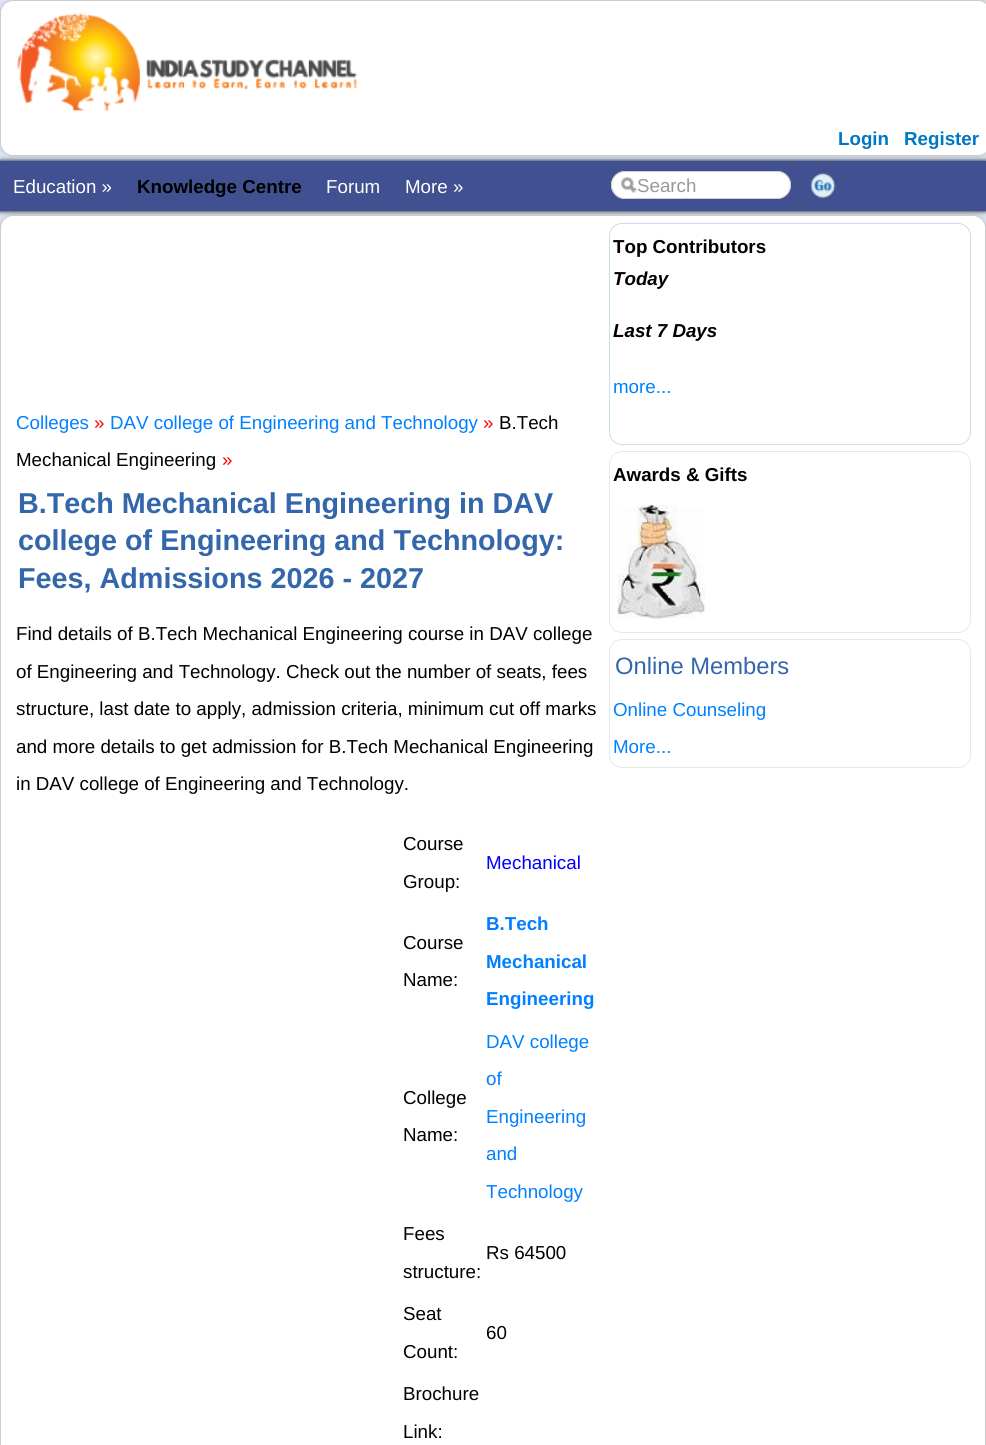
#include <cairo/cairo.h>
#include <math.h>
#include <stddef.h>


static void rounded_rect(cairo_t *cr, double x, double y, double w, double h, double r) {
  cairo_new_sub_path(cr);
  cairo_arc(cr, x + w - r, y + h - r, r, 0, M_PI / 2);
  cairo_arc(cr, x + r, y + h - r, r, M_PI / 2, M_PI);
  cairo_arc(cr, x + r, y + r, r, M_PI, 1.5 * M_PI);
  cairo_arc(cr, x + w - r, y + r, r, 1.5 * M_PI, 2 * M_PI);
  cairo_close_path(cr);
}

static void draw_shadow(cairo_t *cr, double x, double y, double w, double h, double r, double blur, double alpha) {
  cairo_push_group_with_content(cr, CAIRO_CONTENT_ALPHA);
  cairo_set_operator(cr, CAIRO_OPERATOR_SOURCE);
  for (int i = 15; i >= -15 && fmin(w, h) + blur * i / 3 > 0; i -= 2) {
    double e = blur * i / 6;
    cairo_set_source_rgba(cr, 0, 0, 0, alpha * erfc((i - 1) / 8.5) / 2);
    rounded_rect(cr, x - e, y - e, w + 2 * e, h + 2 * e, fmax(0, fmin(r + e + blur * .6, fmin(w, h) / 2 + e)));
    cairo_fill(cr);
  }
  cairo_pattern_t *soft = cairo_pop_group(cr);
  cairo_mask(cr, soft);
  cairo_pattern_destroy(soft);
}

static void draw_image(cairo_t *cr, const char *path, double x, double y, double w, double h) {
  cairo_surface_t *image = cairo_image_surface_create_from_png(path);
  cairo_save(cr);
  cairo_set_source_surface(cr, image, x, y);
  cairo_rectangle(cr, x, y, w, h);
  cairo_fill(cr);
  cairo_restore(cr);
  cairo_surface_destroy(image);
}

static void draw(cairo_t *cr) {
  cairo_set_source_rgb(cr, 220 / 255.0, 230 / 255.0, 244 / 255.0);
  cairo_paint(cr);
  cairo_set_source_rgb(cr, 0, 0, 0);
  draw_shadow(cr, 0, 161, 986, 50, 0, 2.5, 1);
  cairo_set_source_rgb(cr, 64 / 255.0, 80 / 255.0, 144 / 255.0);
  cairo_rectangle(cr, 0, 161, 986, 50);
  cairo_fill(cr);
  cairo_set_source_rgb(cr, 50 / 255.0, 50 / 255.0, 50 / 255.0);
  draw_shadow(cr, 0, 0, 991, 156, 13, 2.5, 0.18);
  cairo_set_source_rgb(cr, 1, 1, 1);
  rounded_rect(cr, 0.5, 0.5, 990, 155, 12.5);
  cairo_fill_preserve(cr);
  cairo_set_source_rgb(cr, 204 / 255.0, 204 / 255.0, 204 / 255.0);
  cairo_set_line_width(cr, 1);
  cairo_stroke(cr);
  draw_image(cr, "images/1.png", 17, 13, 341, 99);
  cairo_set_source_rgb(cr, 1, 1, 1);
  rounded_rect(cr, 611, 171, 180, 28, 14);
  cairo_fill(cr);
  draw_image(cr, "images/2.png", 621, 177, 16, 16);
  rounded_rect(cr, 611.5, 171.5, 179, 27, 13.5);
  cairo_set_source_rgb(cr, 204 / 255.0, 204 / 255.0, 204 / 255.0);
  cairo_stroke(cr);
  draw_image(cr, "images/3.png", 811, 173, 25, 25);
  cairo_set_source_rgb(cr, 50 / 255.0, 50 / 255.0, 50 / 255.0);
  draw_shadow(cr, 0, 215, 986, 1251, 13, 2.5, 0.18);
  cairo_set_source_rgb(cr, 1, 1, 1);
  rounded_rect(cr, 0.5, 215.5, 985, 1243, 12.5);
  cairo_fill_preserve(cr);
  cairo_set_source_rgb(cr, 204 / 255.0, 204 / 255.0, 204 / 255.0);
  cairo_stroke(cr);
  rounded_rect(cr, 609.5, 223.5, 361, 221, 12.5);
  cairo_set_source_rgb(cr, 202 / 255.0, 221 / 255.0, 234 / 255.0);
  cairo_stroke(cr);
  rounded_rect(cr, 609.5, 451.5, 361, 181, 12.5);
  cairo_set_source_rgb(cr, 232 / 255.0, 232 / 255.0, 232 / 255.0);
  cairo_stroke(cr);
  draw_image(cr, "images/4.png", 617, 505, 88, 114);
  rounded_rect(cr, 609.5, 639.5, 361, 128, 12.5);
  cairo_stroke(cr);
  cairo_select_font_face(cr, "Liberation Sans", CAIRO_FONT_SLANT_NORMAL, CAIRO_FONT_WEIGHT_BOLD);
  cairo_set_font_size(cr, 18.75);
  cairo_set_source_rgb(cr, 0, 119 / 255.0, 194 / 255.0);
  cairo_move_to(cr, 838, 145);
  cairo_show_text(cr, "Login");
  cairo_move_to(cr, 904, 145);
  cairo_show_text(cr, "Register");
  cairo_select_font_face(cr, "Liberation Sans", CAIRO_FONT_SLANT_NORMAL, CAIRO_FONT_WEIGHT_NORMAL);
  cairo_set_source_rgb(cr, 1, 1, 1);
  cairo_move_to(cr, 13, 193);
  cairo_show_text(cr, "Education »");
  cairo_select_font_face(cr, "Liberation Sans", CAIRO_FONT_SLANT_NORMAL, CAIRO_FONT_WEIGHT_BOLD);
  cairo_set_source_rgb(cr, 0, 0, 0);
  cairo_move_to(cr, 137, 193);
  cairo_show_text(cr, "Knowledge Centre");
  cairo_select_font_face(cr, "Liberation Sans", CAIRO_FONT_SLANT_NORMAL, CAIRO_FONT_WEIGHT_NORMAL);
  cairo_set_source_rgb(cr, 1, 1, 1);
  cairo_move_to(cr, 326, 193);
  cairo_show_text(cr, "Forum");
  cairo_move_to(cr, 405, 193);
  cairo_show_text(cr, "More »");
  cairo_set_source_rgb(cr, 153 / 255.0, 153 / 255.0, 153 / 255.0);
  cairo_move_to(cr, 637, 192);
  cairo_show_text(cr, "Search");
  cairo_set_source_rgb(cr, 0, 128 / 255.0, 1);
  cairo_move_to(cr, 16, 429);
  cairo_show_text(cr, "Colleges");
  cairo_set_source_rgb(cr, 1, 0, 0);
  cairo_move_to(cr, 94, 429);
  cairo_show_text(cr, "»");
  cairo_set_source_rgb(cr, 0, 128 / 255.0, 1);
  cairo_move_to(cr, 110, 429);
  cairo_show_text(cr, "DAV college of Engineering and Technology");
  cairo_set_source_rgb(cr, 1, 0, 0);
  cairo_move_to(cr, 483, 429);
  cairo_show_text(cr, "»");
  cairo_set_source_rgb(cr, 0, 0, 0);
  cairo_move_to(cr, 499, 429);
  cairo_show_text(cr, "B.Tech");
  cairo_move_to(cr, 16, 466);
  cairo_show_text(cr, "Mechanical Engineering");
  cairo_set_source_rgb(cr, 1, 0, 0);
  cairo_move_to(cr, 222, 466);
  cairo_show_text(cr, "»");
  cairo_select_font_face(cr, "Liberation Sans", CAIRO_FONT_SLANT_NORMAL, CAIRO_FONT_WEIGHT_BOLD);
  cairo_set_font_size(cr, 28.75);
  cairo_set_source_rgb(cr, 51 / 255.0, 102 / 255.0, 170 / 255.0);
  cairo_move_to(cr, 18, 513);
  cairo_show_text(cr, "B.Tech Mechanical Engineering in DAV");
  cairo_move_to(cr, 18, 550);
  cairo_show_text(cr, "college of Engineering and Technology:");
  cairo_move_to(cr, 18, 588);
  cairo_show_text(cr, "Fees, Admissions 2026 - 2027");
  cairo_select_font_face(cr, "Liberation Sans", CAIRO_FONT_SLANT_NORMAL, CAIRO_FONT_WEIGHT_NORMAL);
  cairo_set_font_size(cr, 18.75);
  cairo_set_source_rgb(cr, 0, 0, 0);
  cairo_move_to(cr, 16, 640);
  cairo_show_text(cr, "Find details of B.Tech Mechanical Engineering course in DAV college");
  cairo_move_to(cr, 16, 678);
  cairo_show_text(cr, "of Engineering and Technology. Check out the number of seats, fees");
  cairo_move_to(cr, 16, 715);
  cairo_show_text(cr, "structure, last date to apply, admission criteria, minimum cut off marks");
  cairo_move_to(cr, 16, 753);
  cairo_show_text(cr, "and more details to get admission for B.Tech Mechanical Engineering");
  cairo_move_to(cr, 16, 790);
  cairo_show_text(cr, "in DAV college of Engineering and Technology.");
  cairo_move_to(cr, 403, 850);
  cairo_show_text(cr, "Course");
  cairo_move_to(cr, 403, 888);
  cairo_show_text(cr, "Group:");
  cairo_set_source_rgb(cr, 0, 0, 1);
  cairo_move_to(cr, 486, 869);
  cairo_show_text(cr, "Mechanical");
  cairo_set_source_rgb(cr, 0, 0, 0);
  cairo_move_to(cr, 403, 949);
  cairo_show_text(cr, "Course");
  cairo_move_to(cr, 403, 986);
  cairo_show_text(cr, "Name:");
  cairo_select_font_face(cr, "Liberation Sans", CAIRO_FONT_SLANT_NORMAL, CAIRO_FONT_WEIGHT_BOLD);
  cairo_set_source_rgb(cr, 0, 128 / 255.0, 1);
  cairo_move_to(cr, 486, 930);
  cairo_show_text(cr, "B.Tech");
  cairo_move_to(cr, 486, 968);
  cairo_show_text(cr, "Mechanical");
  cairo_move_to(cr, 486, 1005);
  cairo_show_text(cr, "Engineering");
  cairo_select_font_face(cr, "Liberation Sans", CAIRO_FONT_SLANT_NORMAL, CAIRO_FONT_WEIGHT_NORMAL);
  cairo_set_source_rgb(cr, 0, 0, 0);
  cairo_move_to(cr, 403, 1104);
  cairo_show_text(cr, "College");
  cairo_move_to(cr, 403, 1141);
  cairo_show_text(cr, "Name:");
  cairo_set_source_rgb(cr, 0, 128 / 255.0, 1);
  cairo_move_to(cr, 486, 1048);
  cairo_show_text(cr, "DAV college");
  cairo_move_to(cr, 486, 1085);
  cairo_show_text(cr, "of");
  cairo_move_to(cr, 486, 1123);
  cairo_show_text(cr, "Engineering");
  cairo_move_to(cr, 486, 1160);
  cairo_show_text(cr, "and");
  cairo_move_to(cr, 486, 1198);
  cairo_show_text(cr, "Technology");
  cairo_set_source_rgb(cr, 0, 0, 0);
  cairo_move_to(cr, 403, 1240);
  cairo_show_text(cr, "Fees");
  cairo_move_to(cr, 403, 1278);
  cairo_show_text(cr, "structure:");
  cairo_move_to(cr, 486, 1259);
  cairo_show_text(cr, "Rs 64500");
  cairo_move_to(cr, 403, 1320);
  cairo_show_text(cr, "Seat");
  cairo_move_to(cr, 403, 1358);
  cairo_show_text(cr, "Count:");
  cairo_move_to(cr, 486, 1339);
  cairo_show_text(cr, "60");
  cairo_move_to(cr, 403, 1400);
  cairo_show_text(cr, "Brochure");
  cairo_move_to(cr, 403, 1438);
  cairo_show_text(cr, "Link:");
  cairo_select_font_face(cr, "Liberation Sans", CAIRO_FONT_SLANT_NORMAL, CAIRO_FONT_WEIGHT_BOLD);
  cairo_move_to(cr, 613, 253);
  cairo_show_text(cr, "Top Contributors");
  cairo_select_font_face(cr, "Liberation Sans", CAIRO_FONT_SLANT_ITALIC, CAIRO_FONT_WEIGHT_BOLD);
  cairo_move_to(cr, 613, 285);
  cairo_show_text(cr, "Today");
  cairo_move_to(cr, 613, 337);
  cairo_show_text(cr, "Last 7 Days");
  cairo_select_font_face(cr, "Liberation Sans", CAIRO_FONT_SLANT_NORMAL, CAIRO_FONT_WEIGHT_NORMAL);
  cairo_set_source_rgb(cr, 0, 128 / 255.0, 1);
  cairo_move_to(cr, 613, 393);
  cairo_show_text(cr, "more...");
  cairo_select_font_face(cr, "Liberation Sans", CAIRO_FONT_SLANT_NORMAL, CAIRO_FONT_WEIGHT_BOLD);
  cairo_set_source_rgb(cr, 0, 0, 0);
  cairo_move_to(cr, 613, 481);
  cairo_show_text(cr, "Awards & Gifts");
  cairo_select_font_face(cr, "Liberation Sans", CAIRO_FONT_SLANT_NORMAL, CAIRO_FONT_WEIGHT_NORMAL);
  cairo_set_font_size(cr, 23.75);
  cairo_set_source_rgb(cr, 51 / 255.0, 102 / 255.0, 170 / 255.0);
  cairo_move_to(cr, 615, 674);
  cairo_show_text(cr, "Online Members");
  cairo_set_font_size(cr, 18.75);
  cairo_set_source_rgb(cr, 0, 128 / 255.0, 1);
  cairo_move_to(cr, 613, 716);
  cairo_show_text(cr, "Online Counseling");
  cairo_move_to(cr, 613, 753);
  cairo_show_text(cr, "More...");
}

int main(void) {
  cairo_surface_t *surface = cairo_image_surface_create(CAIRO_FORMAT_RGB24, 986, 1445);
  cairo_t *cr = cairo_create(surface);
  cairo_font_options_t *options = cairo_font_options_create();
  cairo_font_options_set_hint_metrics(options, CAIRO_HINT_METRICS_OFF);
  cairo_font_options_set_hint_style(options, CAIRO_HINT_STYLE_NONE);
  cairo_set_font_options(cr, options);
  cairo_set_miter_limit(cr, 4);
  draw(cr);
  cairo_surface_write_to_png(surface, "out.png");
  cairo_font_options_destroy(options);
  cairo_destroy(cr);
  cairo_surface_destroy(surface);
  return 0;
}
